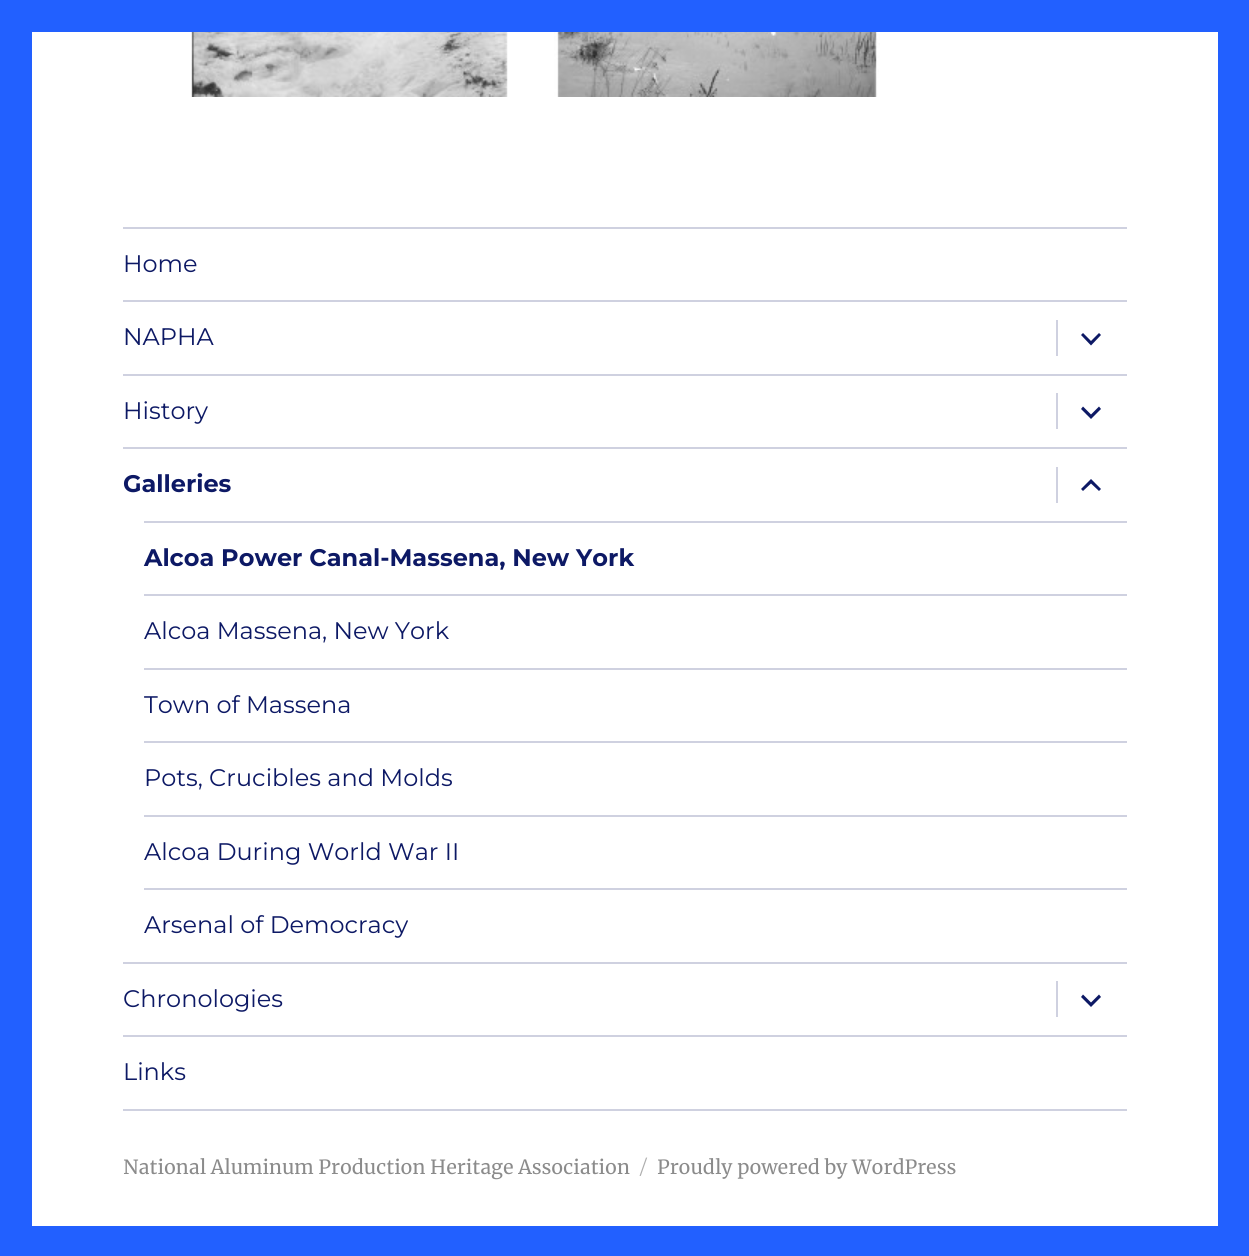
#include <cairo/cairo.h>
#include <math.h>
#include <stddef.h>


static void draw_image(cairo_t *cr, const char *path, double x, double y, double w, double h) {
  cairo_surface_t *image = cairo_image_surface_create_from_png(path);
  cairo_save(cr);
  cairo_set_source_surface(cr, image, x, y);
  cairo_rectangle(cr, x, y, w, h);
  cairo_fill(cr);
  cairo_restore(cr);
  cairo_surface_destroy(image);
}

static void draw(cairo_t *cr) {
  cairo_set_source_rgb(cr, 34 / 255.0, 96 / 255.0, 1);
  cairo_paint(cr);
  cairo_set_source_rgb(cr, 1, 1, 1);
  cairo_rectangle(cr, 32, 32, 1186, 1194);
  cairo_fill(cr);
  draw_image(cr, "images/1.png", 191, 32, 317, 65);
  draw_image(cr, "images/2.png", 554, 32, 326, 65);
  cairo_set_source_rgb(cr, 207 / 255.0, 209 / 255.0, 224 / 255.0);
  cairo_rectangle(cr, 123, 1109, 1004, 2);
  cairo_fill(cr);
  cairo_rectangle(cr, 123, 227, 1004, 2);
  cairo_fill(cr);
  cairo_rectangle(cr, 123, 300, 1004, 2);
  cairo_fill(cr);
  cairo_rectangle(cr, 1056, 320, 2, 36);
  cairo_fill(cr);
  cairo_set_source_rgb(cr, 13 / 255.0, 25 / 255.0, 101 / 255.0);
  cairo_new_path(cr);
  cairo_move_to(cr, 1099, 333);
  cairo_line_to(cr, 1101, 335);
  cairo_line_to(cr, 1091, 345.5);
  cairo_line_to(cr, 1081, 335);
  cairo_line_to(cr, 1083, 333);
  cairo_line_to(cr, 1091, 341);
  cairo_close_path(cr);
  cairo_fill(cr);
  cairo_set_source_rgb(cr, 207 / 255.0, 209 / 255.0, 224 / 255.0);
  cairo_rectangle(cr, 123, 374, 1004, 2);
  cairo_fill(cr);
  cairo_rectangle(cr, 1056, 393, 2, 36);
  cairo_fill(cr);
  cairo_set_source_rgb(cr, 13 / 255.0, 25 / 255.0, 101 / 255.0);
  cairo_new_path(cr);
  cairo_move_to(cr, 1099, 406.5);
  cairo_line_to(cr, 1101, 409);
  cairo_line_to(cr, 1091, 419);
  cairo_line_to(cr, 1081, 409);
  cairo_line_to(cr, 1083, 406.5);
  cairo_line_to(cr, 1091, 414.5);
  cairo_close_path(cr);
  cairo_fill(cr);
  cairo_set_source_rgb(cr, 207 / 255.0, 209 / 255.0, 224 / 255.0);
  cairo_rectangle(cr, 123, 447, 1004, 2);
  cairo_fill(cr);
  cairo_rectangle(cr, 1056, 467, 2, 36);
  cairo_fill(cr);
  cairo_set_source_rgb(cr, 13 / 255.0, 25 / 255.0, 101 / 255.0);
  cairo_new_path(cr);
  cairo_move_to(cr, 1099, 491);
  cairo_line_to(cr, 1091, 483.5);
  cairo_line_to(cr, 1083, 491);
  cairo_line_to(cr, 1081, 489);
  cairo_line_to(cr, 1091, 479);
  cairo_line_to(cr, 1101, 489);
  cairo_close_path(cr);
  cairo_fill(cr);
  cairo_set_source_rgb(cr, 207 / 255.0, 209 / 255.0, 224 / 255.0);
  cairo_rectangle(cr, 144, 521, 983, 2);
  cairo_fill(cr);
  cairo_rectangle(cr, 144, 594, 983, 2);
  cairo_fill(cr);
  cairo_rectangle(cr, 144, 668, 983, 2);
  cairo_fill(cr);
  cairo_rectangle(cr, 144, 741, 983, 2);
  cairo_fill(cr);
  cairo_rectangle(cr, 144, 815, 983, 2);
  cairo_fill(cr);
  cairo_rectangle(cr, 144, 888, 983, 2);
  cairo_fill(cr);
  cairo_rectangle(cr, 123, 962, 1004, 2);
  cairo_fill(cr);
  cairo_rectangle(cr, 1056, 981, 2, 36);
  cairo_fill(cr);
  cairo_set_source_rgb(cr, 13 / 255.0, 25 / 255.0, 101 / 255.0);
  cairo_new_path(cr);
  cairo_move_to(cr, 1099, 994.5);
  cairo_line_to(cr, 1101, 997);
  cairo_line_to(cr, 1091, 1007);
  cairo_line_to(cr, 1081, 997);
  cairo_line_to(cr, 1083, 994.5);
  cairo_line_to(cr, 1091, 1002.5);
  cairo_close_path(cr);
  cairo_fill(cr);
  cairo_set_source_rgb(cr, 207 / 255.0, 209 / 255.0, 224 / 255.0);
  cairo_rectangle(cr, 123, 1035, 1004, 2);
  cairo_fill(cr);
  cairo_select_font_face(cr, "Montserrat Thin", CAIRO_FONT_SLANT_NORMAL, CAIRO_FONT_WEIGHT_NORMAL);
  cairo_set_font_size(cr, 24);
  cairo_set_source_rgb(cr, 13 / 255.0, 25 / 255.0, 101 / 255.0);
  cairo_move_to(cr, 123, 272);
  cairo_show_text(cr, "Home");
  cairo_move_to(cr, 123, 345);
  cairo_show_text(cr, "NAPHA");
  cairo_move_to(cr, 123, 419);
  cairo_show_text(cr, "History");
  cairo_select_font_face(cr, "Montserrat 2 Thin", CAIRO_FONT_SLANT_NORMAL, CAIRO_FONT_WEIGHT_NORMAL);
  cairo_move_to(cr, 123, 492);
  cairo_show_text(cr, "Galleries");
  cairo_move_to(cr, 144, 566);
  cairo_show_text(cr, "Alcoa Power Canal-Massena, New York");
  cairo_select_font_face(cr, "Montserrat Thin", CAIRO_FONT_SLANT_NORMAL, CAIRO_FONT_WEIGHT_NORMAL);
  cairo_move_to(cr, 144, 639);
  cairo_show_text(cr, "Alcoa Massena, New York");
  cairo_move_to(cr, 144, 713);
  cairo_show_text(cr, "Town of Massena");
  cairo_move_to(cr, 144, 786);
  cairo_show_text(cr, "Pots, Crucibles and Molds");
  cairo_move_to(cr, 144, 860);
  cairo_show_text(cr, "Alcoa During World War II");
  cairo_move_to(cr, 144, 933);
  cairo_show_text(cr, "Arsenal of Democracy");
  cairo_move_to(cr, 123, 1007);
  cairo_show_text(cr, "Chronologies");
  cairo_move_to(cr, 123, 1080);
  cairo_show_text(cr, "Links");
  cairo_select_font_face(cr, "Merriweather", CAIRO_FONT_SLANT_NORMAL, CAIRO_FONT_WEIGHT_NORMAL);
  cairo_set_font_size(cr, 19.5);
  cairo_set_source_rgb(cr, 139 / 255.0, 139 / 255.0, 139 / 255.0);
  cairo_move_to(cr, 123, 1174);
  cairo_show_text(cr, "National Aluminum Production Heritage Association");
  cairo_select_font_face(cr, "Montserrat Thin", CAIRO_FONT_SLANT_NORMAL, CAIRO_FONT_WEIGHT_NORMAL);
  cairo_set_source_rgb(cr, 174 / 255.0, 174 / 255.0, 174 / 255.0);
  cairo_move_to(cr, 640, 1174);
  cairo_show_text(cr, "/");
  cairo_select_font_face(cr, "Merriweather", CAIRO_FONT_SLANT_NORMAL, CAIRO_FONT_WEIGHT_NORMAL);
  cairo_set_source_rgb(cr, 139 / 255.0, 139 / 255.0, 139 / 255.0);
  cairo_move_to(cr, 657, 1174);
  cairo_show_text(cr, "Proudly powered by WordPress");
}

int main(void) {
  cairo_surface_t *surface = cairo_image_surface_create(CAIRO_FORMAT_RGB24, 1249, 1256);
  cairo_t *cr = cairo_create(surface);
  cairo_font_options_t *options = cairo_font_options_create();
  cairo_font_options_set_hint_metrics(options, CAIRO_HINT_METRICS_OFF);
  cairo_font_options_set_hint_style(options, CAIRO_HINT_STYLE_NONE);
  cairo_set_font_options(cr, options);
  cairo_set_miter_limit(cr, 4);
  draw(cr);
  cairo_surface_write_to_png(surface, "out.png");
  cairo_font_options_destroy(options);
  cairo_destroy(cr);
  cairo_surface_destroy(surface);
  return 0;
}
